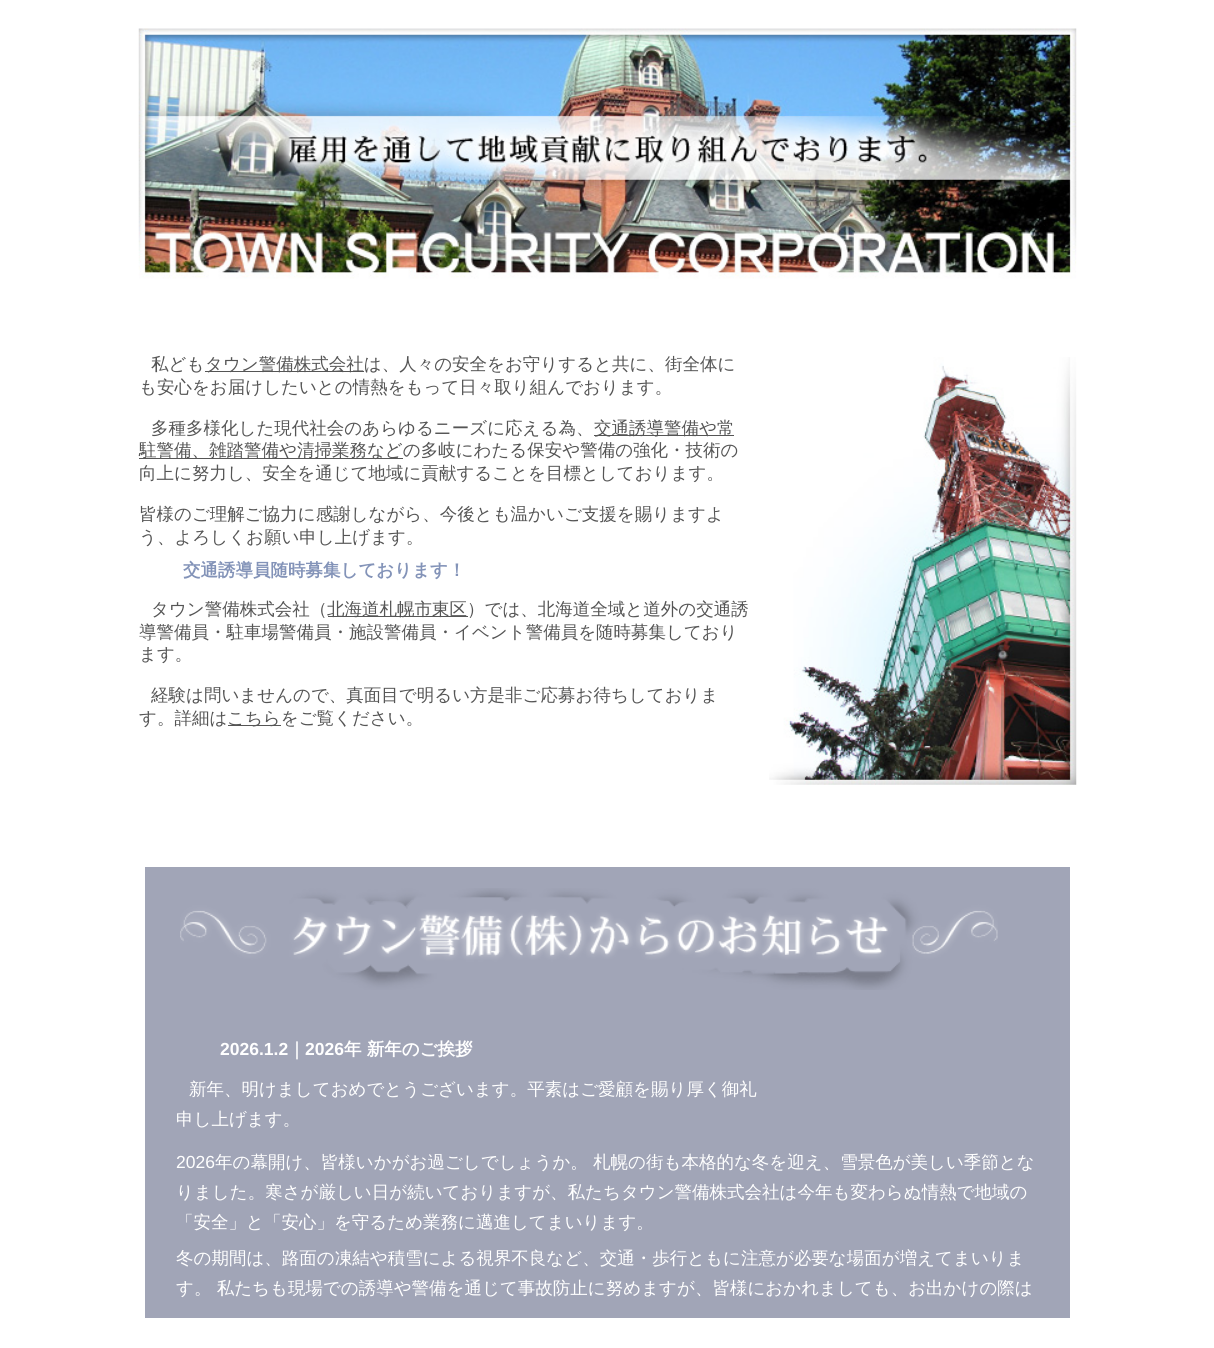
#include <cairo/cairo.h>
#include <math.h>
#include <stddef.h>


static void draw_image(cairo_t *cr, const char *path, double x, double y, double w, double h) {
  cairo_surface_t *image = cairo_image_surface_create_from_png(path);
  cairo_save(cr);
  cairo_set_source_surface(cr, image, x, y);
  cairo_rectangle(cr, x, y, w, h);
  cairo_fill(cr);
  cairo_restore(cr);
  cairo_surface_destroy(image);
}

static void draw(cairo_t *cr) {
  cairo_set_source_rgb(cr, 1, 1, 1);
  cairo_paint(cr);
  draw_image(cr, "images/1.png", 138, 28, 939, 251);
  cairo_set_source_rgb(cr, 85 / 255.0, 85 / 255.0, 85 / 255.0);
  cairo_rectangle(cr, 205, 371, 159, 1);
  cairo_fill(cr);
  cairo_rectangle(cr, 594, 435, 140, 1);
  cairo_fill(cr);
  cairo_rectangle(cr, 139, 458, 264, 1);
  cairo_fill(cr);
  cairo_rectangle(cr, 328, 616, 140, 1);
  cairo_fill(cr);
  cairo_rectangle(cr, 228, 725, 53, 1);
  cairo_fill(cr);
  draw_image(cr, "images/2.png", 769, 357, 308, 428);
  cairo_set_source_rgb(cr, 161 / 255.0, 165 / 255.0, 183 / 255.0);
  cairo_rectangle(cr, 145, 867, 925, 451);
  cairo_fill(cr);
  draw_image(cr, "images/3.png", 180, 888, 818, 102);
  cairo_select_font_face(cr, "WenQuanYi Zen Hei Medium", CAIRO_FONT_SLANT_NORMAL, CAIRO_FONT_WEIGHT_NORMAL);
  cairo_set_font_size(cr, 17.5);
  cairo_set_source_rgb(cr, 85 / 255.0, 85 / 255.0, 85 / 255.0);
  cairo_move_to(cr, 151, 370);
  cairo_show_text(cr, "私ども");
  cairo_move_to(cr, 205, 370);
  cairo_show_text(cr, "タウン警備株式会社は、人々の安全をお守りすると共に、街全体に");
  cairo_move_to(cr, 139, 393);
  cairo_show_text(cr, "も安心をお届けしたいとの情熱をもって日々取り組んでおります。");
  cairo_move_to(cr, 151, 434);
  cairo_show_text(cr, "多種多様化した現代社会のあらゆるニーズに応える為、");
  cairo_move_to(cr, 594, 434);
  cairo_show_text(cr, "交通誘導警備や常");
  cairo_move_to(cr, 139, 456);
  cairo_show_text(cr, "駐警備、雑踏警備や清掃業務などの多岐にわたる保安や警備の強化・技術の");
  cairo_move_to(cr, 139, 479);
  cairo_show_text(cr, "向上に努力し、安全を通じて地域に貢献することを目標としております。");
  cairo_move_to(cr, 139, 520);
  cairo_show_text(cr, "皆様のご理解ご協力に感謝しながら、今後とも温かいご支援を賜りますよ");
  cairo_move_to(cr, 139, 543);
  cairo_show_text(cr, "う、よろしくお願い申し上げます。");
  cairo_select_font_face(cr, "WenQuanYi Zen Hei", CAIRO_FONT_SLANT_NORMAL, CAIRO_FONT_WEIGHT_BOLD);
  cairo_set_source_rgb(cr, 131 / 255.0, 147 / 255.0, 184 / 255.0);
  cairo_move_to(cr, 183, 576);
  cairo_show_text(cr, "交通誘導員随時募集しております！");
  cairo_select_font_face(cr, "WenQuanYi Zen Hei Medium", CAIRO_FONT_SLANT_NORMAL, CAIRO_FONT_WEIGHT_NORMAL);
  cairo_set_source_rgb(cr, 85 / 255.0, 85 / 255.0, 85 / 255.0);
  cairo_move_to(cr, 151, 615);
  cairo_show_text(cr, "タウン警備株式会社（");
  cairo_move_to(cr, 327, 615);
  cairo_show_text(cr, "北海道札幌市東区）では、北海道全域と道外の交通誘");
  cairo_move_to(cr, 139, 638);
  cairo_show_text(cr, "導警備員・駐車場警備員・施設警備員・イベント警備員を随時募集しており");
  cairo_move_to(cr, 139, 660);
  cairo_show_text(cr, "ます。");
  cairo_move_to(cr, 151, 701);
  cairo_show_text(cr, "経験は問いませんので、真面目で明るい方是非ご応募お待ちしておりま");
  cairo_move_to(cr, 139, 724);
  cairo_show_text(cr, "す。詳細は");
  cairo_move_to(cr, 227, 724);
  cairo_show_text(cr, "こちらをご覧ください。");
  cairo_select_font_face(cr, "Liberation Sans", CAIRO_FONT_SLANT_NORMAL, CAIRO_FONT_WEIGHT_BOLD);
  cairo_set_source_rgb(cr, 1, 1, 1);
  cairo_move_to(cr, 220, 1055);
  cairo_show_text(cr, "2026.1.2");
  cairo_select_font_face(cr, "WenQuanYi Zen Hei", CAIRO_FONT_SLANT_NORMAL, CAIRO_FONT_WEIGHT_BOLD);
  cairo_move_to(cr, 288, 1055);
  cairo_show_text(cr, "｜");
  cairo_select_font_face(cr, "Liberation Sans", CAIRO_FONT_SLANT_NORMAL, CAIRO_FONT_WEIGHT_BOLD);
  cairo_move_to(cr, 305, 1055);
  cairo_show_text(cr, "2026");
  cairo_select_font_face(cr, "WenQuanYi Zen Hei", CAIRO_FONT_SLANT_NORMAL, CAIRO_FONT_WEIGHT_BOLD);
  cairo_move_to(cr, 344, 1055);
  cairo_show_text(cr, "年 新年のご挨拶");
  cairo_select_font_face(cr, "WenQuanYi Zen Hei Medium", CAIRO_FONT_SLANT_NORMAL, CAIRO_FONT_WEIGHT_NORMAL);
  cairo_move_to(cr, 189, 1095);
  cairo_show_text(cr, "新年、明けましておめでとうございます。平素はご愛顧を賜り厚く御礼");
  cairo_move_to(cr, 176, 1125);
  cairo_show_text(cr, "申し上げます。");
  cairo_select_font_face(cr, "Liberation Sans", CAIRO_FONT_SLANT_NORMAL, CAIRO_FONT_WEIGHT_NORMAL);
  cairo_move_to(cr, 176, 1168);
  cairo_show_text(cr, "2026");
  cairo_select_font_face(cr, "WenQuanYi Zen Hei Medium", CAIRO_FONT_SLANT_NORMAL, CAIRO_FONT_WEIGHT_NORMAL);
  cairo_move_to(cr, 215, 1168);
  cairo_show_text(cr, "年の幕開け、皆様いかがお過ごしでしょうか。 札幌の街も本格的な冬を迎え、雪景色が美しい季節とな");
  cairo_move_to(cr, 176, 1198);
  cairo_show_text(cr, "りました。寒さが厳しい日が続いておりますが、私たちタウン警備株式会社は今年も変わらぬ情熱で地域の");
  cairo_move_to(cr, 176, 1228);
  cairo_show_text(cr, "「安全」と「安心」を守るため業務に邁進してまいります。");
  cairo_move_to(cr, 176, 1264);
  cairo_show_text(cr, "冬の期間は、路面の凍結や積雪による視界不良など、交通・歩行ともに注意が必要な場面が増えてまいりま");
  cairo_move_to(cr, 176, 1294);
  cairo_show_text(cr, "す。 私たちも現場での誘導や警備を通じて事故防止に努めますが、皆様におかれましても、お出かけの際は");
}

int main(void) {
  cairo_surface_t *surface = cairo_image_surface_create(CAIRO_FORMAT_RGB24, 1214, 1348);
  cairo_t *cr = cairo_create(surface);
  cairo_font_options_t *options = cairo_font_options_create();
  cairo_font_options_set_hint_metrics(options, CAIRO_HINT_METRICS_OFF);
  cairo_font_options_set_hint_style(options, CAIRO_HINT_STYLE_NONE);
  cairo_set_font_options(cr, options);
  cairo_set_miter_limit(cr, 4);
  draw(cr);
  cairo_surface_write_to_png(surface, "out.png");
  cairo_font_options_destroy(options);
  cairo_destroy(cr);
  cairo_surface_destroy(surface);
  return 0;
}
